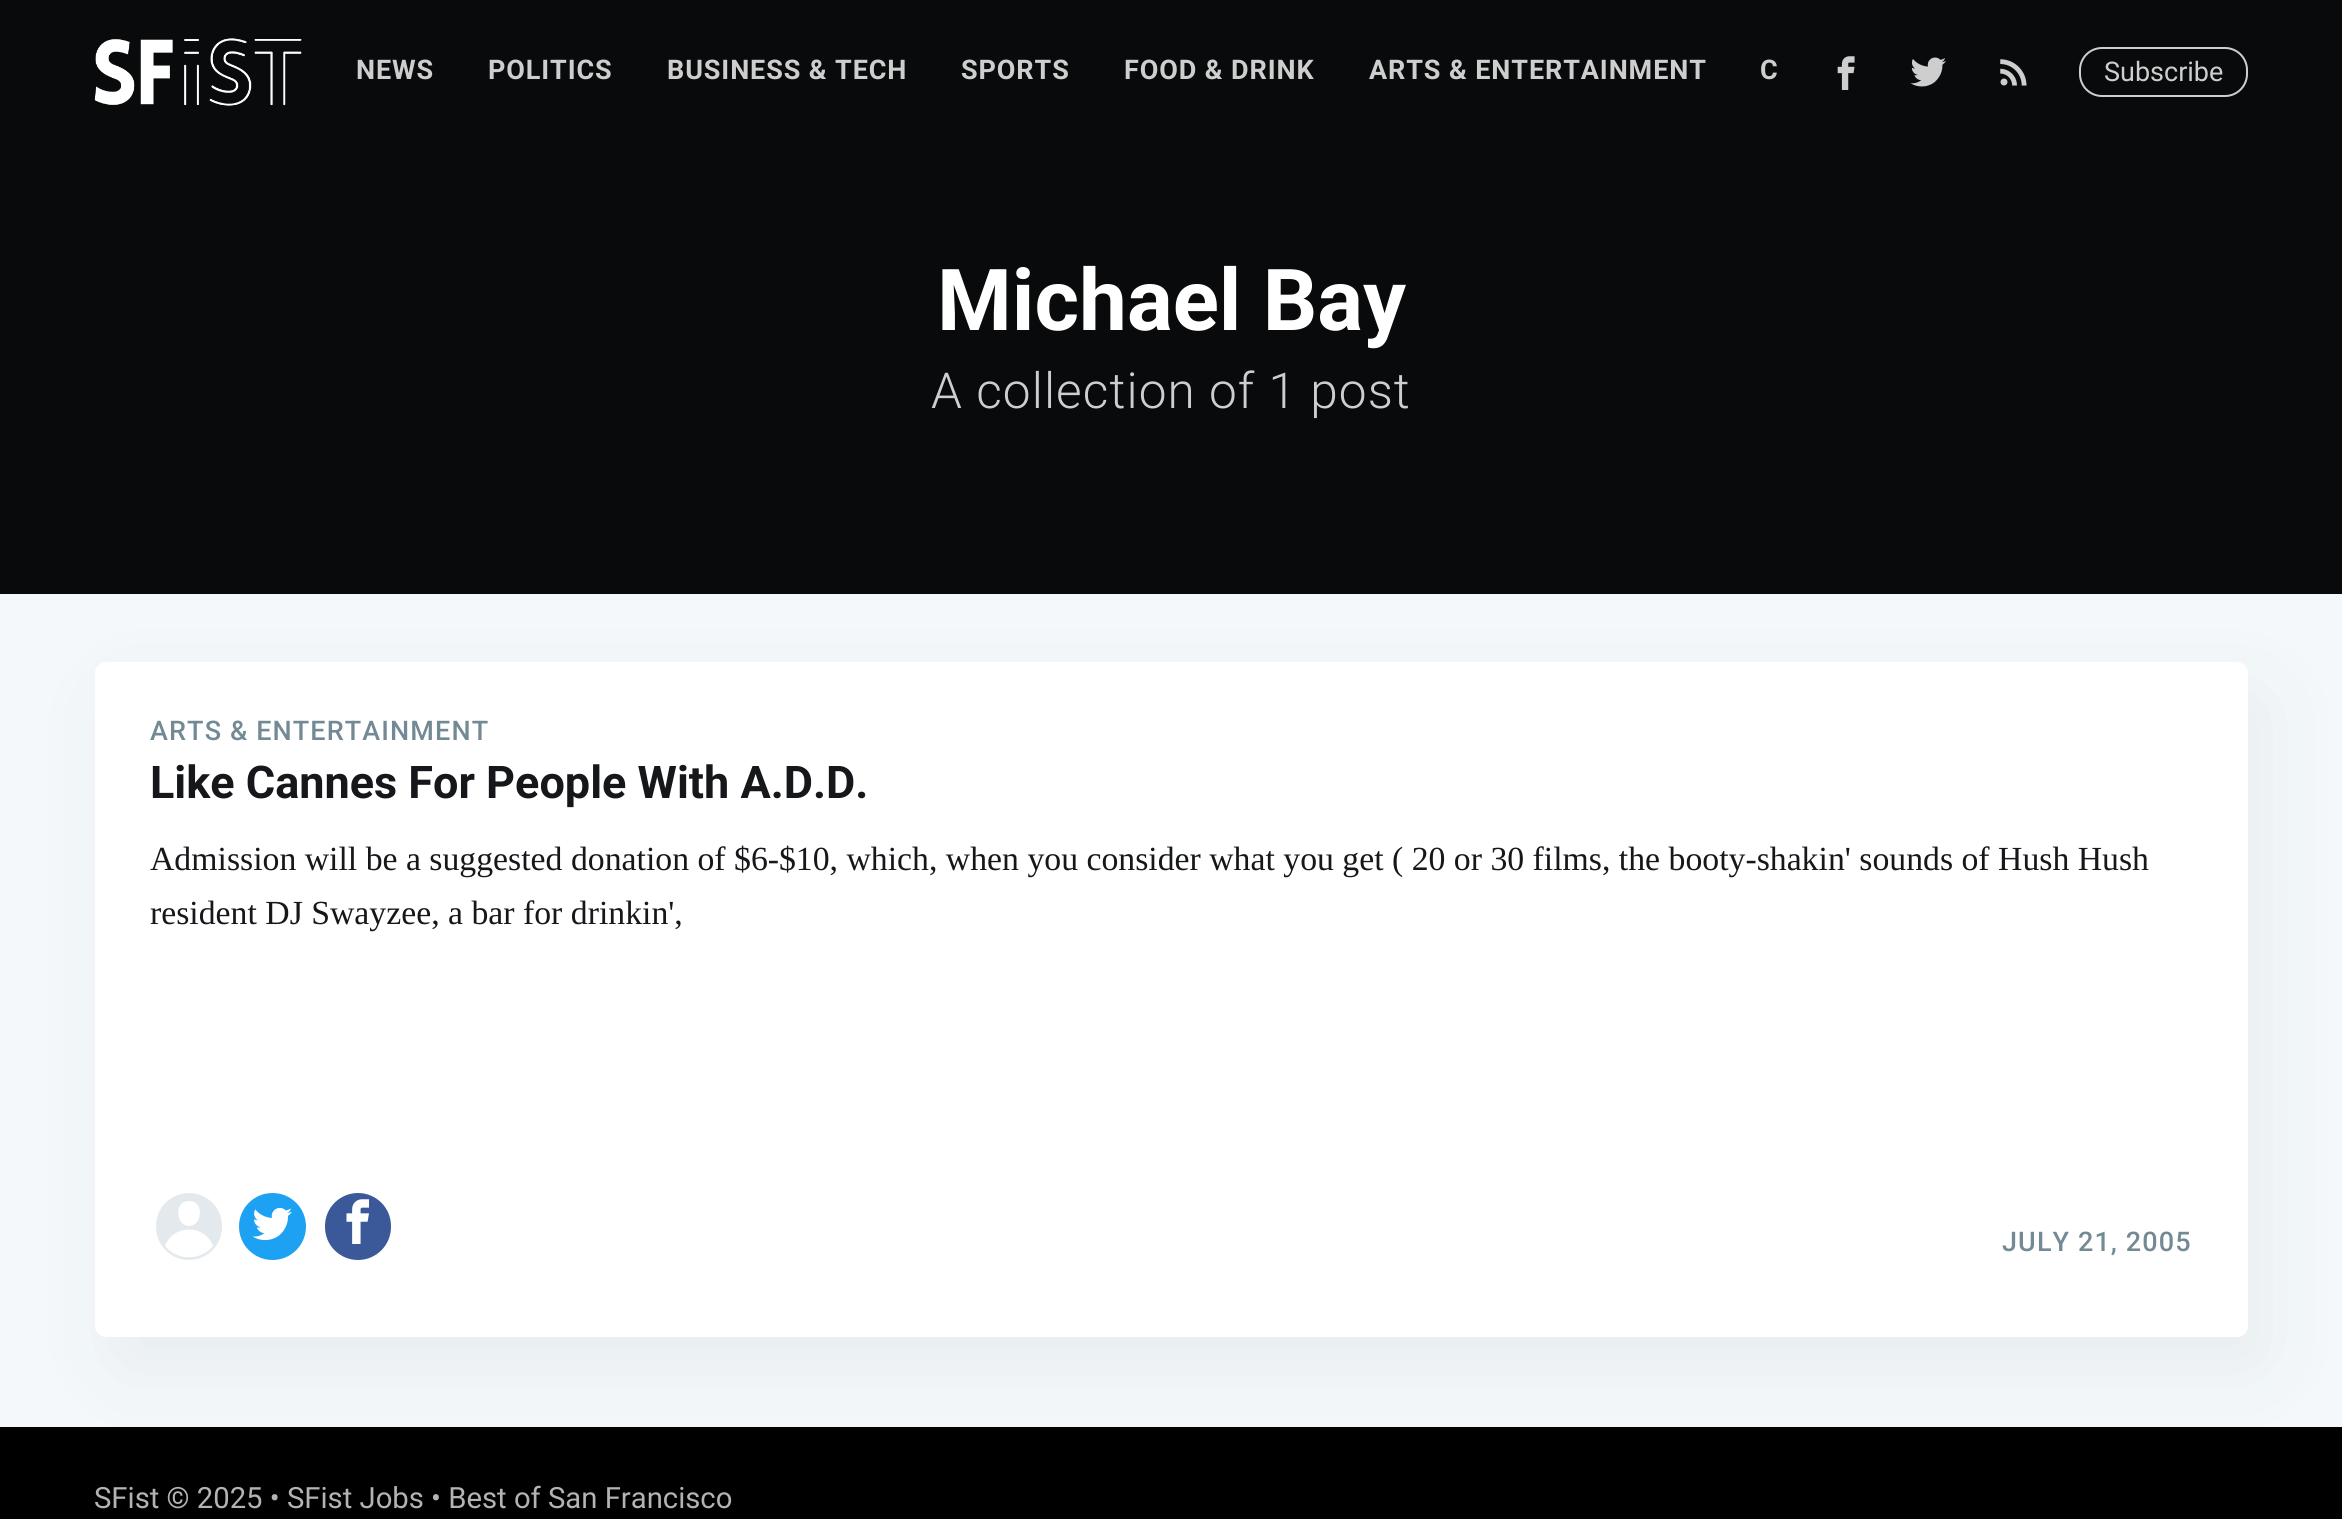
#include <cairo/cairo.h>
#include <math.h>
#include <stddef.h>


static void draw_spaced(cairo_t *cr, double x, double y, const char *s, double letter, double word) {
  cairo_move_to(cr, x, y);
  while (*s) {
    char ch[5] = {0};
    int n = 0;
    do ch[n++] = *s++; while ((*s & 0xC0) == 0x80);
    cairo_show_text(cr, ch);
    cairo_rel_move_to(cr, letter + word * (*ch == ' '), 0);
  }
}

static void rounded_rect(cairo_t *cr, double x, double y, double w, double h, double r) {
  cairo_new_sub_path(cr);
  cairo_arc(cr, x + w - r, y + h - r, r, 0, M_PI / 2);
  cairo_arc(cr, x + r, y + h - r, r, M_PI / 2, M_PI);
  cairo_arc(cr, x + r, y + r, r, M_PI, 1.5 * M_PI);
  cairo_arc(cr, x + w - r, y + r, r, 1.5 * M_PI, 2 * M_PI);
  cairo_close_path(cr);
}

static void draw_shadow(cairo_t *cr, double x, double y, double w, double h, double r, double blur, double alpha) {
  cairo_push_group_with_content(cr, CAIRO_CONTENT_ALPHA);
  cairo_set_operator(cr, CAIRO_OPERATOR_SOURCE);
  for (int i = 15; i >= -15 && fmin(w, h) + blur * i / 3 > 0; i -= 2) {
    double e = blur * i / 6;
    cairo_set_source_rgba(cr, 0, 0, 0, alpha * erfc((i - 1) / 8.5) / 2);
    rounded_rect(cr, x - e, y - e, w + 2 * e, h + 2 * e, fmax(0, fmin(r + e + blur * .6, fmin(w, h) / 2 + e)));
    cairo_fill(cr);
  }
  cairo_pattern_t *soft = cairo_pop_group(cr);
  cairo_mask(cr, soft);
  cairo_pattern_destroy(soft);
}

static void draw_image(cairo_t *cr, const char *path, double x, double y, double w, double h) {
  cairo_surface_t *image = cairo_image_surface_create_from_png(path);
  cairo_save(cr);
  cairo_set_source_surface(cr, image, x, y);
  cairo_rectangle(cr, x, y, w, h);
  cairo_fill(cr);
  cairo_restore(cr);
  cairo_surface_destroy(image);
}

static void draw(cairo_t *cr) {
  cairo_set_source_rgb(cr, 244 / 255.0, 248 / 255.0, 251 / 255.0);
  cairo_paint(cr);
  cairo_set_source_rgb(cr, 9 / 255.0, 10 / 255.0, 11 / 255.0);
  cairo_rectangle(cr, 0, 0, 2342, 594);
  cairo_fill(cr);
  draw_image(cr, "images/1.png", 94, 38, 208, 68);
  draw_image(cr, "images/2.png", 1837, 56, 18, 34);
  draw_image(cr, "images/3.png", 1910, 57, 36, 30);
  draw_image(cr, "images/4.png", 2000, 59, 27, 27);
  rounded_rect(cr, 2080, 48, 167, 48, 22);
  cairo_set_source_rgb(cr, 206 / 255.0, 206 / 255.0, 206 / 255.0);
  cairo_stroke(cr);
  cairo_set_source_rgb(cr, 0, 0, 0);
  cairo_rectangle(cr, 0, 1427, 2342, 92);
  cairo_fill(cr);
  cairo_set_source_rgb(cr, 39 / 255.0, 44 / 255.0, 49 / 255.0);
  draw_shadow(cr, 113, 693, 2153, 675, 11, 43, 0.06);
  cairo_set_source_rgb(cr, 1, 1, 1);
  rounded_rect(cr, 95, 662, 2153, 675, 11);
  cairo_fill(cr);
  cairo_set_source_rgb(cr, 227 / 255.0, 233 / 255.0, 237 / 255.0);
  rounded_rect(cr, 153.5, 1190.5, 71, 72, 35.5);
  cairo_fill_preserve(cr);
  cairo_set_source_rgb(cr, 1, 1, 1);
  cairo_set_line_width(cr, 5);
  cairo_stroke(cr);
  cairo_set_fill_rule(cr, CAIRO_FILL_RULE_EVEN_ODD);
  cairo_new_path(cr);
  cairo_move_to(cr, 165, 1246);
  cairo_curve_to(cr, 173, 1224, 205, 1224, 213, 1246);
  cairo_curve_to(cr, 201, 1261, 177, 1261, 165, 1246);
  cairo_close_path(cr);
  cairo_move_to(cr, 189, 1226);
  cairo_curve_to(cr, 202, 1226, 205, 1201, 189, 1201);
  cairo_curve_to(cr, 173, 1201, 176, 1226, 189, 1226);
  cairo_close_path(cr);
  cairo_fill(cr);
  cairo_set_source_rgb(cr, 29 / 255.0, 161 / 255.0, 242 / 255.0);
  cairo_arc(cr, 272.5, 1226.5, 36, 0, 2 * M_PI);
  cairo_fill_preserve(cr);
  cairo_set_source_rgb(cr, 1, 1, 1);
  cairo_stroke(cr);
  draw_image(cr, "images/5.png", 252, 1207, 40, 34);
  cairo_set_source_rgb(cr, 59 / 255.0, 89 / 255.0, 152 / 255.0);
  rounded_rect(cr, 322.5, 1190.5, 71, 72, 35.5);
  cairo_fill_preserve(cr);
  cairo_set_source_rgb(cr, 1, 1, 1);
  cairo_stroke(cr);
  draw_image(cr, "images/6.png", 346, 1199, 23, 45);
  cairo_select_font_face(cr, "Roboto", CAIRO_FONT_SLANT_NORMAL, CAIRO_FONT_WEIGHT_BOLD);
  cairo_set_font_size(cr, 27);
  cairo_set_source_rgb(cr, 206 / 255.0, 206 / 255.0, 206 / 255.0);
  draw_spaced(cr, 356, 79, "NEWS", 0.9, 0);
  draw_spaced(cr, 488, 79, "POLITICS", 0.9, 0);
  draw_spaced(cr, 667, 79, "BUSINESS & TECH", 0.9, 0);
  draw_spaced(cr, 961, 79, "SPORTS", 0.9, 0);
  draw_spaced(cr, 1124, 79, "FOOD & DRINK", 0.9, 0);
  draw_spaced(cr, 1369, 79, "ARTS & ENTERTAINMENT", 0.9, 0);
  draw_spaced(cr, 1760, 79, "C", 0.9, 0);
  cairo_select_font_face(cr, "Roboto", CAIRO_FONT_SLANT_NORMAL, CAIRO_FONT_WEIGHT_NORMAL);
  cairo_move_to(cr, 2104, 81);
  cairo_show_text(cr, "Subscribe");
  cairo_select_font_face(cr, "Roboto", CAIRO_FONT_SLANT_NORMAL, CAIRO_FONT_WEIGHT_BOLD);
  cairo_set_font_size(cr, 85.5);
  cairo_set_source_rgb(cr, 1, 1, 1);
  cairo_move_to(cr, 937, 330);
  cairo_show_text(cr, "Michael Bay");
  cairo_select_font_face(cr, "Roboto Light", CAIRO_FONT_SLANT_NORMAL, CAIRO_FONT_WEIGHT_NORMAL);
  cairo_set_font_size(cr, 49.5);
  cairo_set_source_rgb(cr, 206 / 255.0, 206 / 255.0, 206 / 255.0);
  draw_spaced(cr, 931, 408, "A collection of 1 post", 1.1, 0);
  cairo_select_font_face(cr, "Roboto Medium", CAIRO_FONT_SLANT_NORMAL, CAIRO_FONT_WEIGHT_NORMAL);
  cairo_set_font_size(cr, 27);
  cairo_set_source_rgb(cr, 115 / 255.0, 138 / 255.0, 148 / 255.0);
  draw_spaced(cr, 150, 740, "ARTS & ENTERTAINMENT", 1.1, 0);
  cairo_select_font_face(cr, "Roboto", CAIRO_FONT_SLANT_NORMAL, CAIRO_FONT_WEIGHT_BOLD);
  cairo_set_font_size(cr, 45);
  cairo_set_source_rgb(cr, 21 / 255.0, 23 / 255.0, 26 / 255.0);
  cairo_move_to(cr, 150, 798);
  cairo_show_text(cr, "Like Cannes For People With A.D.D.");
  cairo_select_font_face(cr, "Liberation Serif", CAIRO_FONT_SLANT_NORMAL, CAIRO_FONT_WEIGHT_NORMAL);
  cairo_set_font_size(cr, 33.75);
  cairo_move_to(cr, 150, 870);
  cairo_show_text(cr, "Admission will be a suggested donation of $6-$10, which, when you consider what you get ( 20 or 30 films, the booty-shakin' sounds of Hush Hush");
  cairo_move_to(cr, 150, 924);
  cairo_show_text(cr, "resident DJ Swayzee, a bar for drinkin',");
  cairo_select_font_face(cr, "Roboto Medium", CAIRO_FONT_SLANT_NORMAL, CAIRO_FONT_WEIGHT_NORMAL);
  cairo_set_font_size(cr, 27);
  cairo_set_source_rgb(cr, 115 / 255.0, 138 / 255.0, 148 / 255.0);
  draw_spaced(cr, 2002, 1251, "JULY 21, 2005", 1.1, 0);
  cairo_select_font_face(cr, "Roboto", CAIRO_FONT_SLANT_NORMAL, CAIRO_FONT_WEIGHT_NORMAL);
  cairo_set_font_size(cr, 29.25);
  cairo_set_source_rgb(cr, 179 / 255.0, 179 / 255.0, 179 / 255.0);
  cairo_move_to(cr, 94, 1508);
  cairo_show_text(cr, "SFist © 2025 • SFist Jobs • Best of San Francisco");
}

int main(void) {
  cairo_surface_t *surface = cairo_image_surface_create(CAIRO_FORMAT_RGB24, 2342, 1519);
  cairo_t *cr = cairo_create(surface);
  cairo_font_options_t *options = cairo_font_options_create();
  cairo_font_options_set_hint_metrics(options, CAIRO_HINT_METRICS_OFF);
  cairo_font_options_set_hint_style(options, CAIRO_HINT_STYLE_NONE);
  cairo_set_font_options(cr, options);
  cairo_set_miter_limit(cr, 4);
  draw(cr);
  cairo_surface_write_to_png(surface, "out.png");
  cairo_font_options_destroy(options);
  cairo_destroy(cr);
  cairo_surface_destroy(surface);
  return 0;
}
